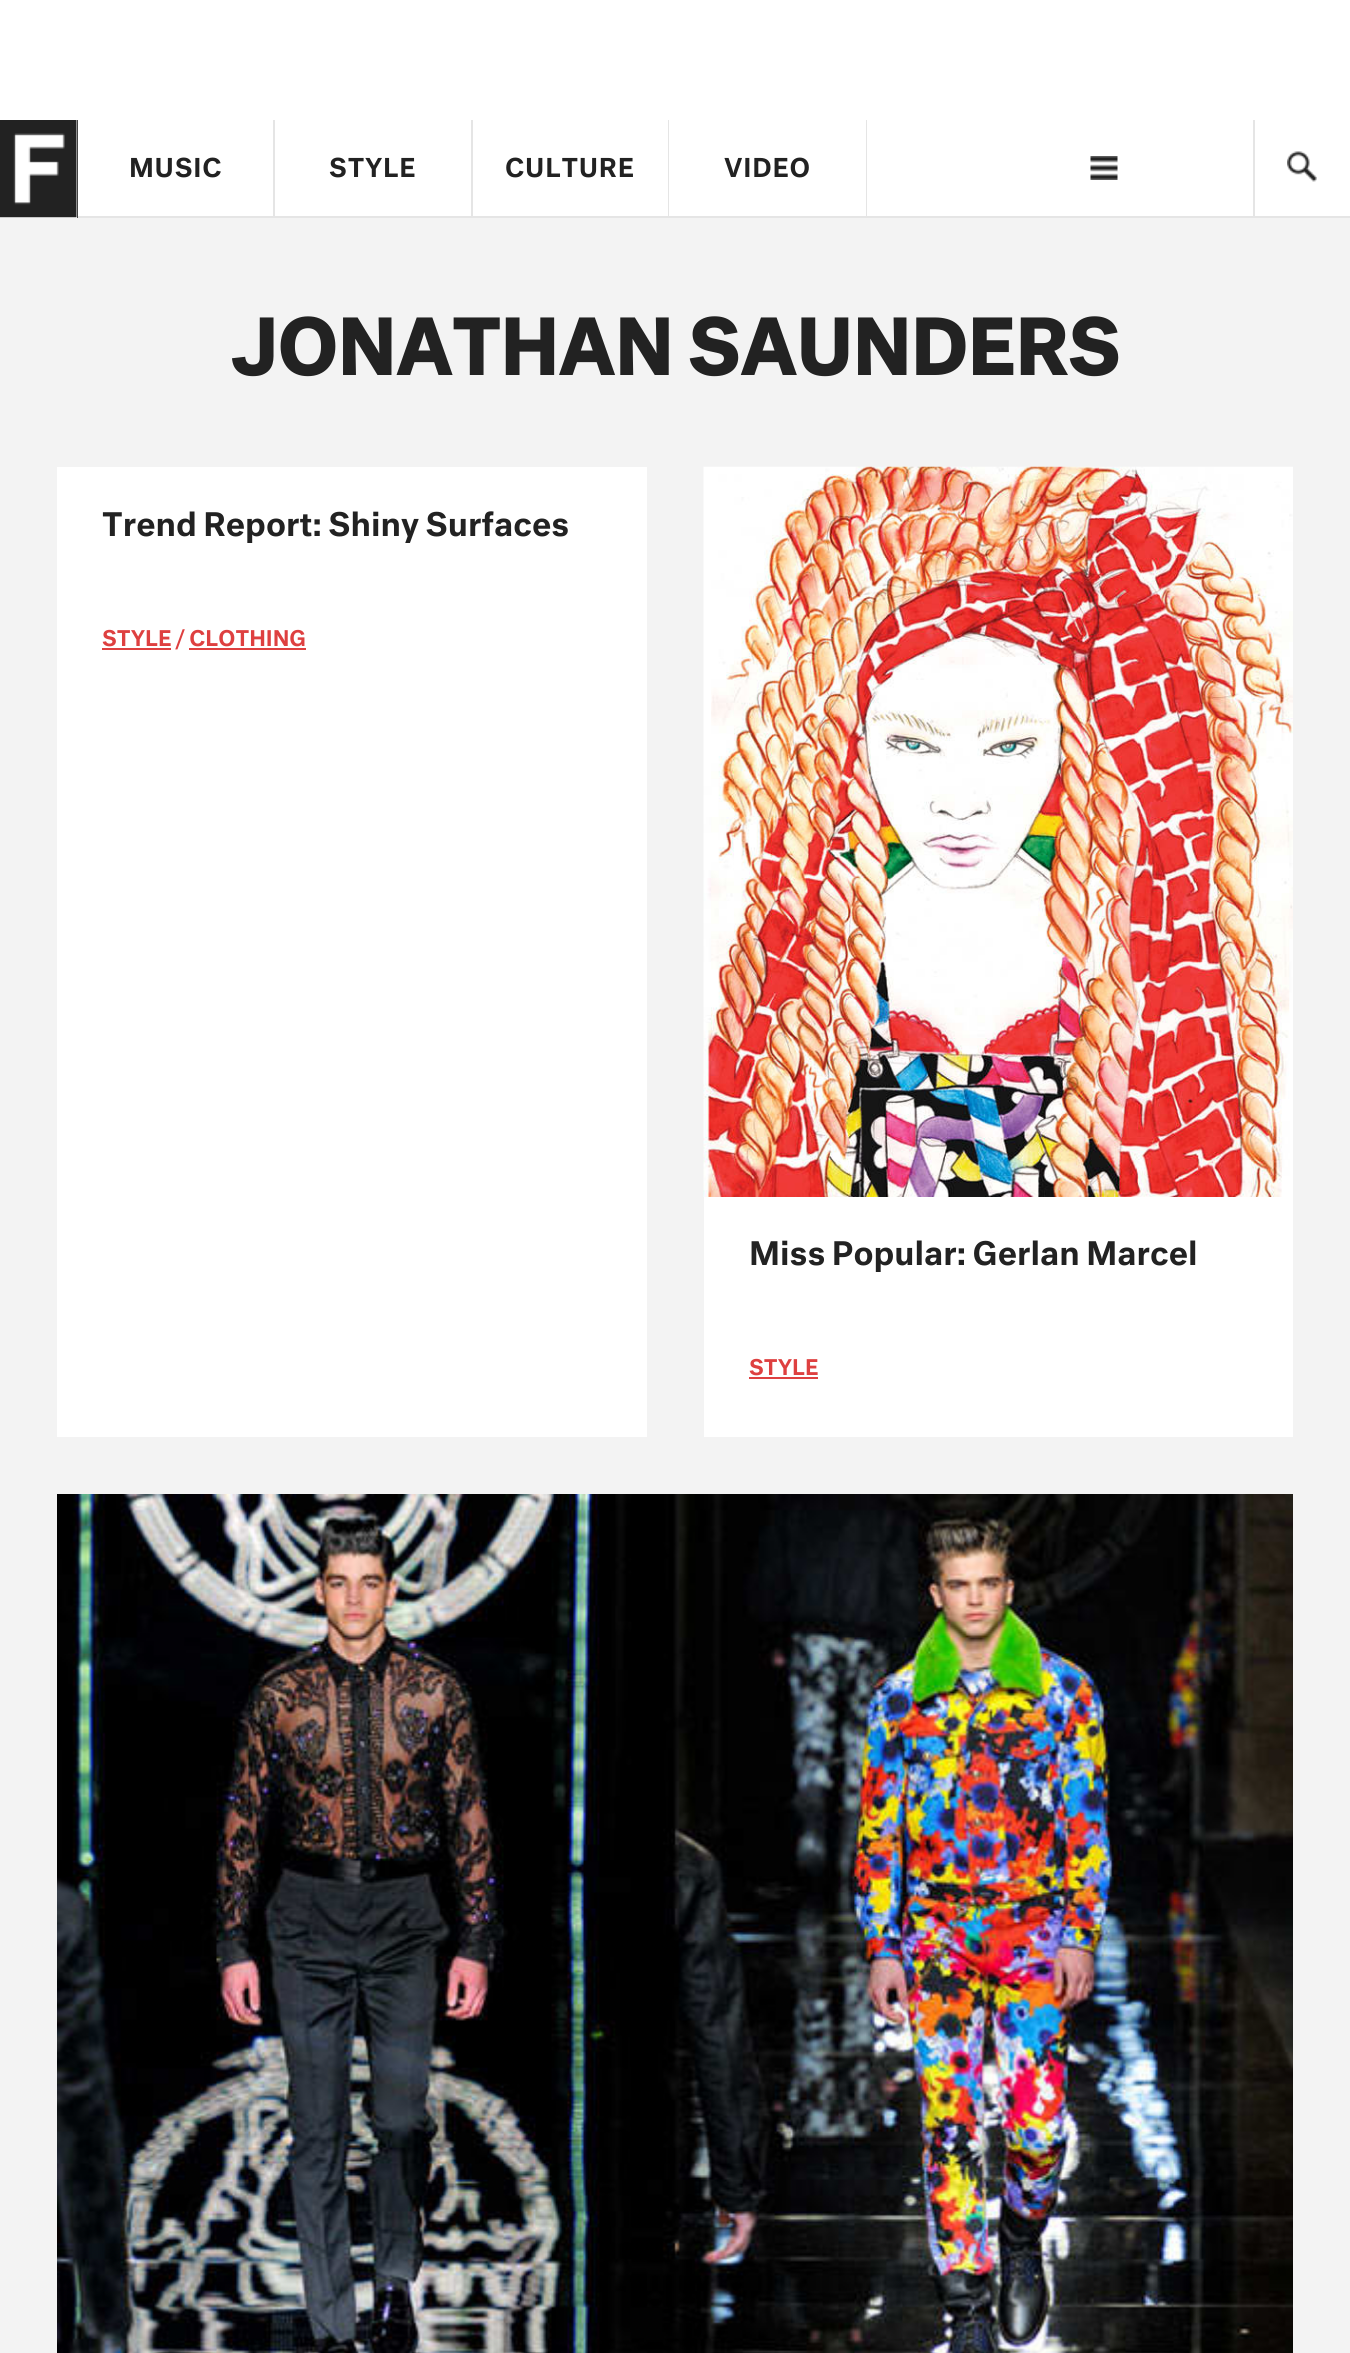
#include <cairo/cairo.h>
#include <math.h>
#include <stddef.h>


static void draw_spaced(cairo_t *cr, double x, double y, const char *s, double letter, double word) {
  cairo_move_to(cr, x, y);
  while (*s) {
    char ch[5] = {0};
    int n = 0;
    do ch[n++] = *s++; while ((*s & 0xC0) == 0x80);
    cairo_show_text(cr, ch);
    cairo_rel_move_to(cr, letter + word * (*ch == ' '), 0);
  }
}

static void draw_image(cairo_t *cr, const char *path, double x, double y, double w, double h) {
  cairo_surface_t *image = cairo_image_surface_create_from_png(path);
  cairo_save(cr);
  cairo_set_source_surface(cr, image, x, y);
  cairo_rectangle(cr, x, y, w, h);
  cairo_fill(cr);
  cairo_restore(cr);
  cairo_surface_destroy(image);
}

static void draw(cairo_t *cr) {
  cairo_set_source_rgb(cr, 1, 1, 1);
  cairo_paint(cr);
  cairo_set_source_rgb(cr, 68 / 255.0, 68 / 255.0, 68 / 255.0);
  cairo_rectangle(cr, 77, 120, 1, 98);
  cairo_fill(cr);
  draw_image(cr, "images/1.png", 0, 120, 77, 98);
  cairo_set_source_rgb(cr, 229 / 255.0, 229 / 255.0, 229 / 255.0);
  cairo_rectangle(cr, 273, 120, 2, 98);
  cairo_fill(cr);
  cairo_rectangle(cr, 78, 216, 197, 2);
  cairo_fill(cr);
  cairo_rectangle(cr, 471, 120, 2, 98);
  cairo_fill(cr);
  cairo_rectangle(cr, 275, 216, 198, 2);
  cairo_fill(cr);
  cairo_rectangle(cr, 668, 120, 1, 98);
  cairo_fill(cr);
  cairo_rectangle(cr, 473, 216, 196, 2);
  cairo_fill(cr);
  cairo_rectangle(cr, 866, 120, 1, 98);
  cairo_fill(cr);
  cairo_rectangle(cr, 669, 216, 198, 2);
  cairo_fill(cr);
  cairo_rectangle(cr, 867, 216, 483, 2);
  cairo_fill(cr);
  draw_image(cr, "images/2.png", 1090, 156, 28, 24);
  cairo_rectangle(cr, 1253, 120, 2, 98);
  cairo_fill(cr);
  draw_image(cr, "images/3.png", 1287, 151, 30, 31);
  cairo_set_source_rgb(cr, 243 / 255.0, 243 / 255.0, 243 / 255.0);
  cairo_rectangle(cr, 0, 218, 1350, 2135);
  cairo_fill(cr);
  cairo_set_source_rgb(cr, 1, 1, 1);
  cairo_rectangle(cr, 57, 467, 590, 970);
  cairo_fill(cr);
  cairo_set_source_rgb(cr, 222 / 255.0, 64 / 255.0, 64 / 255.0);
  cairo_rectangle(cr, 102, 648, 69, 2);
  cairo_fill(cr);
  cairo_rectangle(cr, 189, 648, 117, 2);
  cairo_fill(cr);
  cairo_set_source_rgb(cr, 1, 1, 1);
  cairo_rectangle(cr, 704, 1197, 589, 240);
  cairo_fill(cr);
  draw_image(cr, "images/4.png", 703, 466, 590, 731);
  cairo_set_source_rgb(cr, 222 / 255.0, 64 / 255.0, 64 / 255.0);
  cairo_rectangle(cr, 749, 1377, 69, 2);
  cairo_fill(cr);
  draw_image(cr, "images/5.png", 57, 1494, 1236, 859);
  cairo_select_font_face(cr, "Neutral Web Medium", CAIRO_FONT_SLANT_NORMAL, CAIRO_FONT_WEIGHT_NORMAL);
  cairo_set_font_size(cr, 25.25);
  cairo_set_source_rgb(cr, 34 / 255.0, 34 / 255.0, 34 / 255.0);
  draw_spaced(cr, 129, 177, "MUSIC", 0.75, 0);
  draw_spaced(cr, 329, 177, "STYLE", 0.75, 0);
  draw_spaced(cr, 505, 177, "CULTURE", 0.75, 0);
  draw_spaced(cr, 724, 177, "VIDEO", 0.75, 0);
  cairo_select_font_face(cr, "Neutral Web", CAIRO_FONT_SLANT_NORMAL, CAIRO_FONT_WEIGHT_BOLD);
  cairo_set_font_size(cr, 73.5);
  cairo_move_to(cr, 230, 375);
  cairo_show_text(cr, "JONATHAN SAUNDERS");
  cairo_select_font_face(cr, "Neutral Web Medium", CAIRO_FONT_SLANT_NORMAL, CAIRO_FONT_WEIGHT_NORMAL);
  cairo_set_font_size(cr, 31.5);
  cairo_move_to(cr, 102, 536);
  cairo_show_text(cr, "Trend Report: Shiny Surfaces");
  cairo_set_font_size(cr, 21);
  cairo_set_source_rgb(cr, 222 / 255.0, 64 / 255.0, 64 / 255.0);
  cairo_move_to(cr, 102, 646);
  cairo_show_text(cr, "STYLE / CLOTHING");
  cairo_set_font_size(cr, 31.5);
  cairo_set_source_rgb(cr, 34 / 255.0, 34 / 255.0, 34 / 255.0);
  cairo_move_to(cr, 749, 1265);
  cairo_show_text(cr, "Miss Popular: Gerlan Marcel");
  cairo_set_font_size(cr, 21);
  cairo_set_source_rgb(cr, 222 / 255.0, 64 / 255.0, 64 / 255.0);
  cairo_move_to(cr, 749, 1375);
  cairo_show_text(cr, "STYLE");
}

int main(void) {
  cairo_surface_t *surface = cairo_image_surface_create(CAIRO_FORMAT_RGB24, 1350, 2353);
  cairo_t *cr = cairo_create(surface);
  cairo_font_options_t *options = cairo_font_options_create();
  cairo_font_options_set_hint_metrics(options, CAIRO_HINT_METRICS_OFF);
  cairo_font_options_set_hint_style(options, CAIRO_HINT_STYLE_NONE);
  cairo_set_font_options(cr, options);
  cairo_set_miter_limit(cr, 4);
  draw(cr);
  cairo_surface_write_to_png(surface, "out.png");
  cairo_font_options_destroy(options);
  cairo_destroy(cr);
  cairo_surface_destroy(surface);
  return 0;
}
